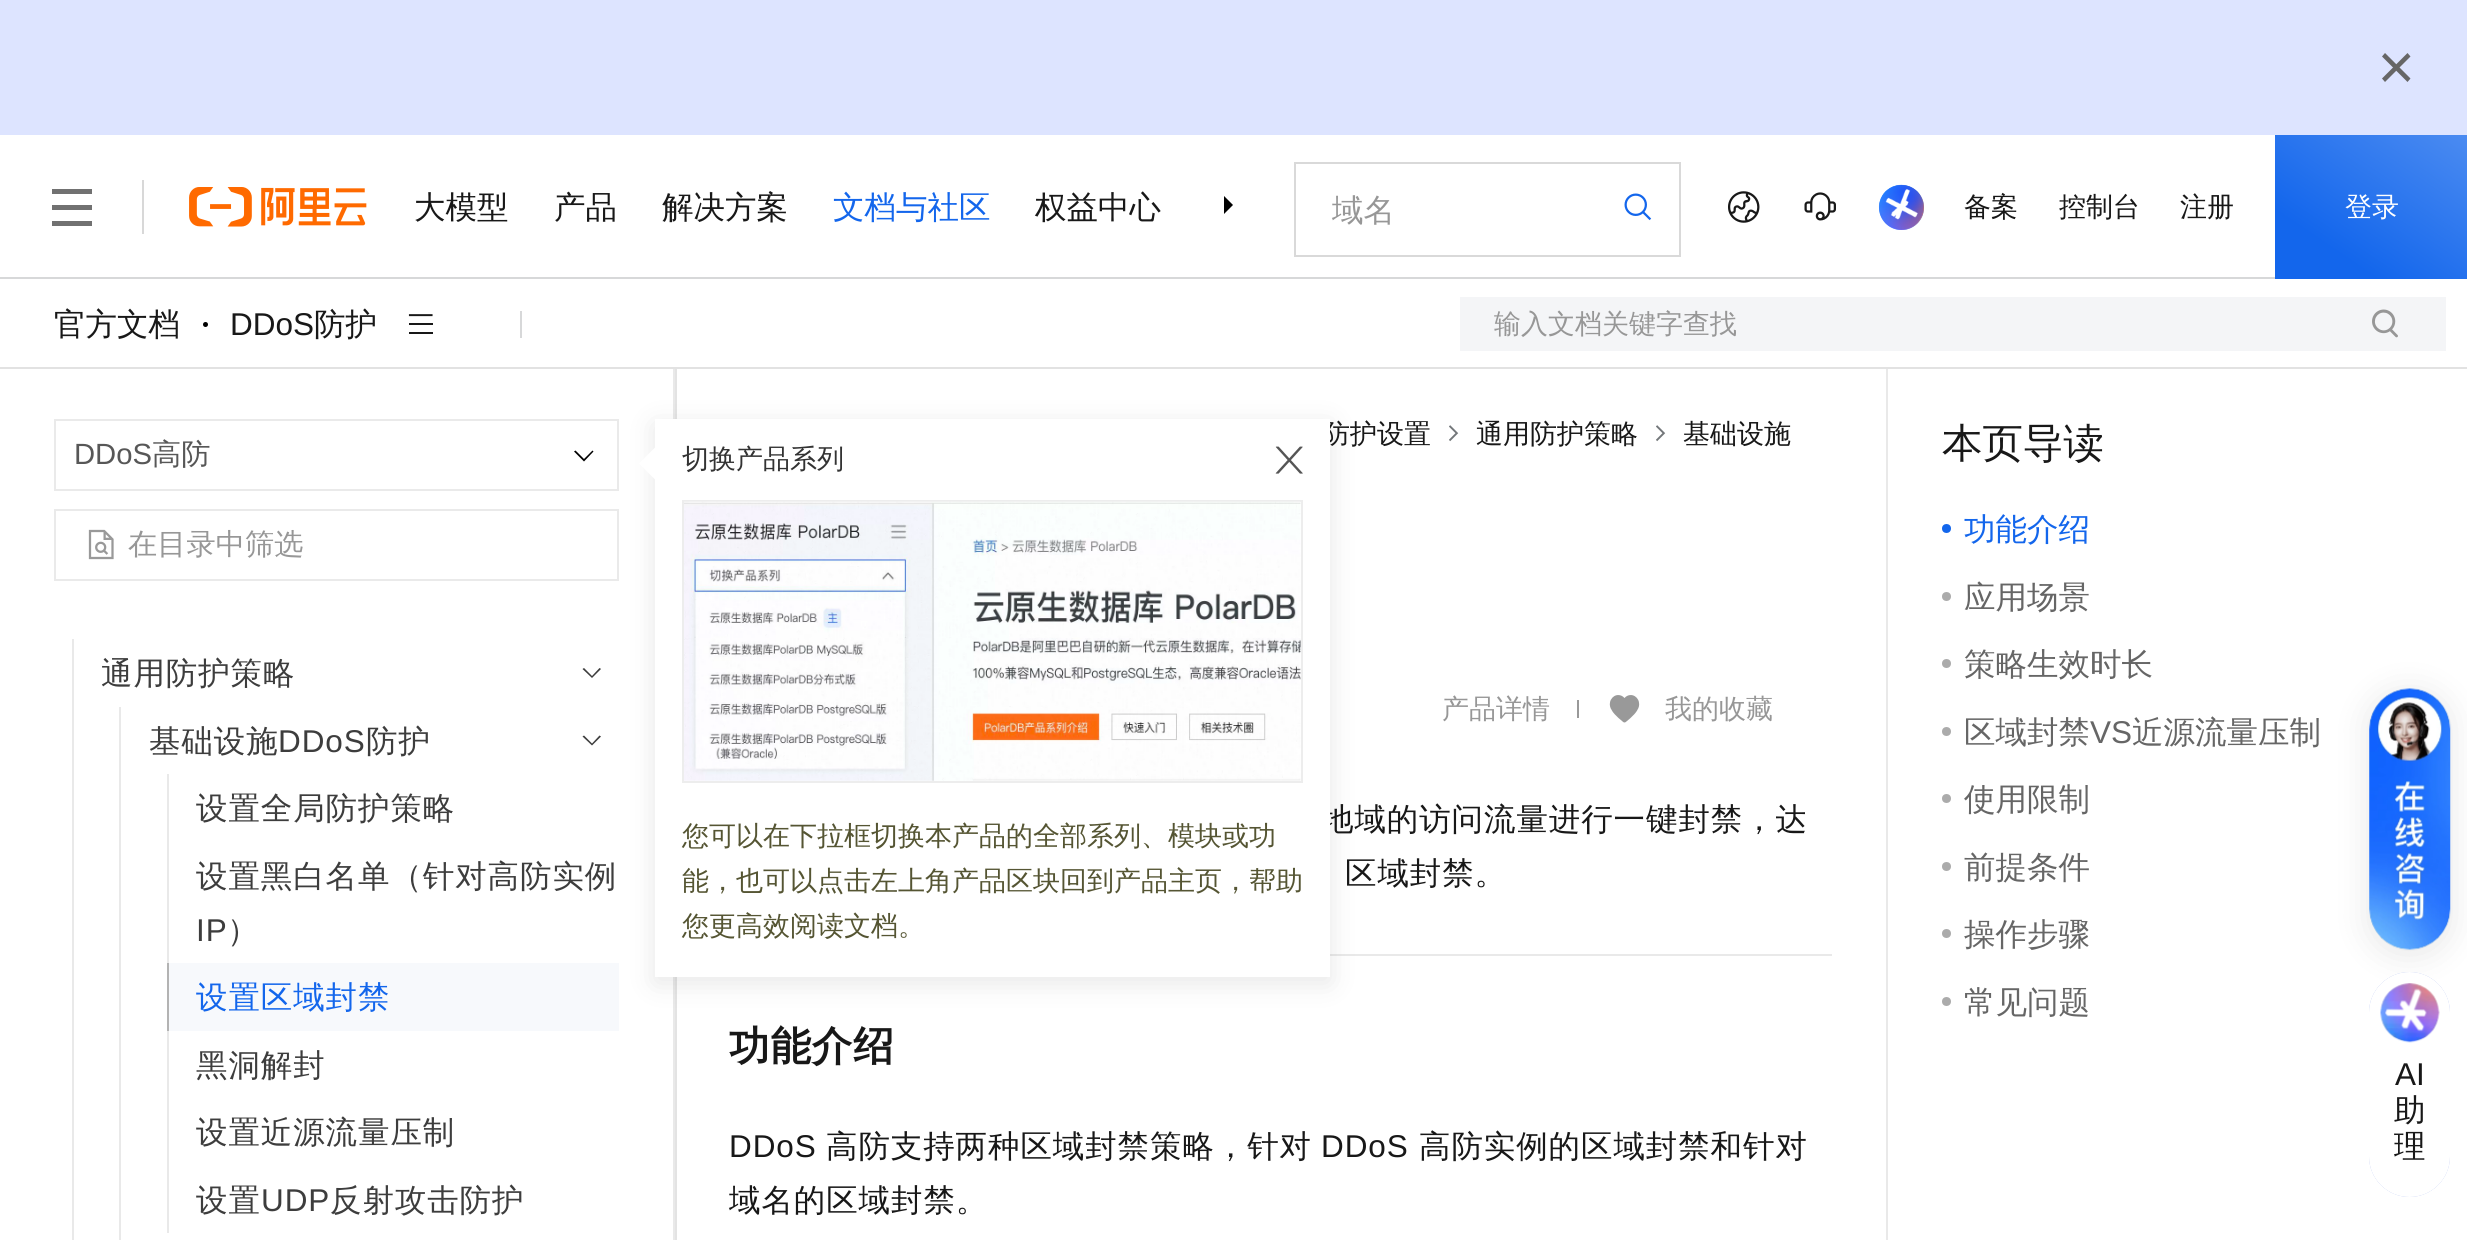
#include <cairo/cairo.h>
#include <math.h>
#include <stddef.h>


static void draw_spaced(cairo_t *cr, double x, double y, const char *s, double letter, double word) {
  cairo_move_to(cr, x, y);
  while (*s) {
    char ch[5] = {0};
    int n = 0;
    do ch[n++] = *s++; while ((*s & 0xC0) == 0x80);
    cairo_show_text(cr, ch);
    cairo_rel_move_to(cr, letter + word * (*ch == ' '), 0);
  }
}

static void rounded_rect(cairo_t *cr, double x, double y, double w, double h, double r) {
  cairo_new_sub_path(cr);
  cairo_arc(cr, x + w - r, y + h - r, r, 0, M_PI / 2);
  cairo_arc(cr, x + r, y + h - r, r, M_PI / 2, M_PI);
  cairo_arc(cr, x + r, y + r, r, M_PI, 1.5 * M_PI);
  cairo_arc(cr, x + w - r, y + r, r, 1.5 * M_PI, 2 * M_PI);
  cairo_close_path(cr);
}

static void draw_shadow(cairo_t *cr, double x, double y, double w, double h, double r, double blur, double alpha) {
  cairo_push_group_with_content(cr, CAIRO_CONTENT_ALPHA);
  cairo_set_operator(cr, CAIRO_OPERATOR_SOURCE);
  for (int i = 15; i >= -15 && fmin(w, h) + blur * i / 3 > 0; i -= 2) {
    double e = blur * i / 6;
    cairo_set_source_rgba(cr, 0, 0, 0, alpha * erfc((i - 1) / 8.5) / 2);
    rounded_rect(cr, x - e, y - e, w + 2 * e, h + 2 * e, fmax(0, fmin(r + e + blur * .6, fmin(w, h) / 2 + e)));
    cairo_fill(cr);
  }
  cairo_pattern_t *soft = cairo_pop_group(cr);
  cairo_mask(cr, soft);
  cairo_pattern_destroy(soft);
}

static void draw_image(cairo_t *cr, const char *path, double x, double y, double w, double h) {
  cairo_surface_t *image = cairo_image_surface_create_from_png(path);
  cairo_save(cr);
  cairo_set_source_surface(cr, image, x, y);
  cairo_rectangle(cr, x, y, w, h);
  cairo_fill(cr);
  cairo_restore(cr);
  cairo_surface_destroy(image);
}

static void draw(cairo_t *cr) {
  cairo_pattern_t *gradient;
  cairo_set_source_rgb(cr, 1, 1, 1);
  cairo_paint(cr);
  cairo_set_source_rgb(cr, 221 / 255.0, 228 / 255.0, 1);
  cairo_rectangle(cr, 0, 0, 2467, 135);
  cairo_fill(cr);
  cairo_set_source_rgb(cr, 102 / 255.0, 102 / 255.0, 102 / 255.0);
  cairo_new_path(cr);
  cairo_move_to(cr, 2385, 53);
  cairo_line_to(cr, 2410.5, 78.5);
  cairo_line_to(cr, 2407.5, 82);
  cairo_line_to(cr, 2382, 56.5);
  cairo_close_path(cr);
  cairo_fill(cr);
  cairo_new_path(cr);
  cairo_move_to(cr, 2382, 78.5);
  cairo_line_to(cr, 2407.5, 53);
  cairo_line_to(cr, 2410.5, 56.5);
  cairo_line_to(cr, 2385, 82);
  cairo_close_path(cr);
  cairo_fill(cr);
  cairo_set_source_rgb(cr, 215 / 255.0, 216 / 255.0, 217 / 255.0);
  cairo_rectangle(cr, 0, 277, 2275, 2);
  cairo_fill(cr);
  cairo_set_source_rgb(cr, 113 / 255.0, 113 / 255.0, 113 / 255.0);
  cairo_rectangle(cr, 52, 189, 40, 5);
  cairo_fill(cr);
  cairo_rectangle(cr, 52, 205, 40, 5);
  cairo_fill(cr);
  cairo_rectangle(cr, 52, 221, 40, 5);
  cairo_fill(cr);
  cairo_set_source_rgb(cr, 216 / 255.0, 216 / 255.0, 216 / 255.0);
  cairo_rectangle(cr, 142, 180, 2, 54);
  cairo_fill(cr);
  draw_image(cr, "images/1.png", 189, 187, 178, 40);
  cairo_set_source_rgb(cr, 0, 0, 0);
  cairo_new_path(cr);
  cairo_move_to(cr, 1224, 196);
  cairo_line_to(cr, 1233, 205);
  cairo_line_to(cr, 1224, 214);
  cairo_close_path(cr);
  cairo_fill(cr);
  cairo_rectangle(cr, 1295, 163, 385, 93);
  cairo_set_source_rgb(cr, 217 / 255.0, 217 / 255.0, 217 / 255.0);
  cairo_stroke(cr);
  draw_image(cr, "images/2.png", 1624, 193, 28, 28);
  draw_image(cr, "images/3.png", 1728, 191, 32, 32);
  draw_image(cr, "images/4.png", 1804, 192, 32, 29);
  cairo_set_source_rgb(cr, 37 / 255.0, 165 / 255.0, 1);
  cairo_arc(cr, 1901.5, 207.5, 22.5, 0, 2 * M_PI);
  cairo_fill(cr);
  gradient = cairo_pattern_create_radial(1901, 218, 0, 1901, 218, 41);
  cairo_pattern_add_color_stop_rgba(gradient, 0.05, 123 / 255.0, 71 / 255.0, 1, 1);
  cairo_pattern_add_color_stop_rgba(gradient, 0.8, 123 / 255.0, 71 / 255.0, 1, 0);
  cairo_set_source(cr, gradient);
  cairo_pattern_destroy(gradient);
  cairo_arc(cr, 1901.5, 207.5, 22.5, 0, 2 * M_PI);
  cairo_fill(cr);
  gradient = cairo_pattern_create_radial(1913, 207, 0, 1913, 207, 41);
  cairo_pattern_add_color_stop_rgba(gradient, 0.05, 1, 100 / 255.0, 50 / 255.0, 1);
  cairo_pattern_add_color_stop_rgba(gradient, 0.7, 1, 100 / 255.0, 50 / 255.0, 0);
  cairo_set_source(cr, gradient);
  cairo_pattern_destroy(gradient);
  cairo_arc(cr, 1901.5, 207.5, 22.5, 0, 2 * M_PI);
  cairo_fill(cr);
  gradient = cairo_pattern_create_radial(1901, 196, 0, 1901, 196, 41);
  cairo_pattern_add_color_stop_rgba(gradient, 0.05, 21 / 255.0, 72 / 255.0, 1, 1);
  cairo_pattern_add_color_stop_rgba(gradient, 0.6, 21 / 255.0, 72 / 255.0, 1, 0);
  cairo_set_source(cr, gradient);
  cairo_pattern_destroy(gradient);
  cairo_arc(cr, 1901.5, 207.5, 22.5, 0, 2 * M_PI);
  cairo_fill(cr);
  draw_image(cr, "images/5.png", 1878, 184, 46, 45);
  draw_image(cr, "images/6.png", 1885, 189, 33, 31);
  gradient = cairo_pattern_create_linear(2435, 113, 2308, 301);
  cairo_pattern_add_color_stop_rgba(gradient, 0, 75 / 255.0, 139 / 255.0, 241 / 255.0, 1);
  cairo_pattern_add_color_stop_rgba(gradient, 0.75, 19 / 255.0, 102 / 255.0, 236 / 255.0, 1);
  cairo_set_source(cr, gradient);
  cairo_pattern_destroy(gradient);
  cairo_rectangle(cr, 2275, 135, 192, 144);
  cairo_fill(cr);
  cairo_set_source_rgb(cr, 226 / 255.0, 226 / 255.0, 226 / 255.0);
  cairo_rectangle(cr, 0, 367, 2467, 2);
  cairo_fill(cr);
  cairo_set_source_rgb(cr, 215 / 255.0, 216 / 255.0, 217 / 255.0);
  cairo_rectangle(cr, 520, 311, 2, 27);
  cairo_fill(cr);
  cairo_set_source_rgb(cr, 0, 0, 0);
  cairo_arc(cr, 205.5, 324.5, 2.5, 0, 2 * M_PI);
  cairo_fill(cr);
  draw_image(cr, "images/7.png", 408, 314, 25, 20);
  cairo_set_source_rgb(cr, 244 / 255.0, 245 / 255.0, 247 / 255.0);
  cairo_rectangle(cr, 1460, 297, 986, 54);
  cairo_fill(cr);
  draw_image(cr, "images/8.png", 2372, 309, 26, 29);
  cairo_set_source_rgb(cr, 233 / 255.0, 233 / 255.0, 233 / 255.0);
  cairo_rectangle(cr, 673, 369, 2, 871);
  cairo_fill(cr);
  cairo_set_source_rgb(cr, 227 / 255.0, 227 / 255.0, 227 / 255.0);
  cairo_rectangle(cr, 675, 369, 2, 871);
  cairo_fill(cr);
  cairo_rectangle(cr, 55, 420, 563, 70);
  cairo_set_source_rgb(cr, 234 / 255.0, 234 / 255.0, 234 / 255.0);
  cairo_stroke(cr);
  cairo_set_source_rgb(cr, 0, 0, 0);
  cairo_set_fill_rule(cr, CAIRO_FILL_RULE_EVEN_ODD);
  cairo_new_path(cr);
  cairo_move_to(cr, 575.5, 450.5);
  cairo_line_to(cr, 584, 459);
  cairo_line_to(cr, 592.5, 450.5);
  cairo_line_to(cr, 593.5, 451.5);
  cairo_line_to(cr, 584, 461.5);
  cairo_line_to(cr, 574, 451.5);
  cairo_close_path(cr);
  cairo_fill(cr);
  cairo_rectangle(cr, 55, 510, 563, 70);
  cairo_set_source_rgb(cr, 234 / 255.0, 234 / 255.0, 234 / 255.0);
  cairo_stroke(cr);
  cairo_set_source_rgb(cr, 247 / 255.0, 249 / 255.0, 252 / 255.0);
  cairo_rectangle(cr, 169, 963, 450, 68);
  cairo_fill(cr);
  cairo_set_source_rgb(cr, 233 / 255.0, 233 / 255.0, 233 / 255.0);
  cairo_rectangle(cr, 1330, 954, 502, 2);
  cairo_fill(cr);
  cairo_set_source_rgb(cr, 47 / 255.0, 49 / 255.0, 51 / 255.0);
  draw_shadow(cr, 655, 425, 675, 558, 0, 13.5, 0.12);
  draw_image(cr, "images/11.png", 88, 529, 26, 31);
  cairo_set_source_rgb(cr, 233 / 255.0, 233 / 255.0, 233 / 255.0);
  cairo_rectangle(cr, 72, 639, 2, 601);
  cairo_fill(cr);
  cairo_set_source_rgb(cr, 61 / 255.0, 61 / 255.0, 61 / 255.0);
  cairo_new_path(cr);
  cairo_move_to(cr, 584, 668);
  cairo_line_to(cr, 592, 676);
  cairo_line_to(cr, 599.5, 668);
  cairo_line_to(cr, 601, 669);
  cairo_line_to(cr, 592, 678);
  cairo_line_to(cr, 582.5, 669);
  cairo_close_path(cr);
  cairo_fill(cr);
  cairo_set_source_rgb(cr, 233 / 255.0, 233 / 255.0, 233 / 255.0);
  cairo_rectangle(cr, 119, 707, 2, 533);
  cairo_fill(cr);
  cairo_set_source_rgb(cr, 61 / 255.0, 61 / 255.0, 61 / 255.0);
  cairo_new_path(cr);
  cairo_move_to(cr, 584, 735.5);
  cairo_line_to(cr, 592, 743.5);
  cairo_line_to(cr, 599.5, 735.5);
  cairo_line_to(cr, 601, 736.5);
  cairo_line_to(cr, 592, 745.5);
  cairo_line_to(cr, 582.5, 736.5);
  cairo_close_path(cr);
  cairo_fill(cr);
  cairo_set_source_rgb(cr, 233 / 255.0, 233 / 255.0, 233 / 255.0);
  cairo_rectangle(cr, 167, 774, 2, 189);
  cairo_fill(cr);
  cairo_set_source_rgb(cr, 179 / 255.0, 179 / 255.0, 179 / 255.0);
  cairo_rectangle(cr, 167, 963, 2, 68);
  cairo_fill(cr);
  cairo_set_source_rgb(cr, 233 / 255.0, 233 / 255.0, 233 / 255.0);
  cairo_rectangle(cr, 167, 1031, 2, 202);
  cairo_fill(cr);
  cairo_rectangle(cr, 1886, 369, 2, 871);
  cairo_fill(cr);
  draw_image(cr, "images/12.png", 1449, 425, 10, 17);
  draw_image(cr, "images/12.png", 1656, 425, 10, 17);
  cairo_set_source_rgb(cr, 153 / 255.0, 153 / 255.0, 153 / 255.0);
  cairo_rectangle(cr, 1577, 700, 2, 18);
  cairo_fill(cr);
  draw_image(cr, "images/13.png", 1609, 695, 31, 28);
  cairo_set_source_rgb(cr, 19 / 255.0, 102 / 255.0, 236 / 255.0);
  cairo_arc(cr, 1946.5, 528.5, 4.5, 0, 2 * M_PI);
  cairo_fill(cr);
  cairo_set_source_rgb(cr, 171 / 255.0, 171 / 255.0, 171 / 255.0);
  cairo_arc(cr, 1946.5, 596.5, 4.5, 0, 2 * M_PI);
  cairo_fill(cr);
  cairo_arc(cr, 1946.5, 663.5, 4.5, 0, 2 * M_PI);
  cairo_fill(cr);
  cairo_arc(cr, 1946.5, 731.5, 4.5, 0, 2 * M_PI);
  cairo_fill(cr);
  cairo_arc(cr, 1946.5, 798.5, 4.5, 0, 2 * M_PI);
  cairo_fill(cr);
  cairo_arc(cr, 1946.5, 866.5, 4.5, 0, 2 * M_PI);
  cairo_fill(cr);
  cairo_arc(cr, 1946.5, 933.5, 4.5, 0, 2 * M_PI);
  cairo_fill(cr);
  cairo_arc(cr, 1946.5, 1001.5, 4.5, 0, 2 * M_PI);
  cairo_fill(cr);
  cairo_set_source_rgb(cr, 0, 0, 0);
  draw_shadow(cr, 2369, 693, 81, 261, 40.5, 17, 0.1);
  draw_image(cr, "images/14.png", 2369, 688, 82, 262);
  cairo_save(cr);
  cairo_set_fill_rule(cr, CAIRO_FILL_RULE_WINDING);
  rounded_rect(cr, 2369, 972, 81, 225, 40.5);
  cairo_clip(cr);
  cairo_set_source_rgb(cr, 37 / 255.0, 165 / 255.0, 1);
  draw_shadow(cr, 2257, 860, 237, 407, 0, 9, 0.25);
  cairo_set_source_rgb(cr, 123 / 255.0, 71 / 255.0, 1);
  draw_shadow(cr, 2257, 860, 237, 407, 0, 9, 0.1);
  cairo_set_source_rgb(cr, 1, 100 / 255.0, 50 / 255.0);
  draw_shadow(cr, 2257, 860, 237, 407, 0, 9, 0.09);
  cairo_set_source_rgb(cr, 21 / 255.0, 72 / 255.0, 1);
  draw_shadow(cr, 2257, 860, 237, 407, 0, 9, 0.08);
  cairo_restore(cr);
  cairo_set_source_rgb(cr, 1, 1, 1);
  rounded_rect(cr, 2369, 972, 81, 225, 40.5);
  cairo_fill(cr);
  draw_image(cr, "images/15.png", 2380, 983, 60, 60);
  draw_image(cr, "images/16.png", 2385, 988, 42, 44);
  cairo_select_font_face(cr, "WenQuanYi Zen Hei Medium", CAIRO_FONT_SLANT_NORMAL, CAIRO_FONT_WEIGHT_NORMAL);
  cairo_set_font_size(cr, 31.5);
  cairo_set_source_rgb(cr, 24 / 255.0, 24 / 255.0, 24 / 255.0);
  cairo_move_to(cr, 414, 218);
  cairo_show_text(cr, "大模型");
  cairo_move_to(cr, 554, 218);
  cairo_show_text(cr, "产品");
  cairo_move_to(cr, 662, 218);
  cairo_show_text(cr, "解决方案");
  cairo_set_source_rgb(cr, 19 / 255.0, 102 / 255.0, 236 / 255.0);
  cairo_move_to(cr, 833, 218);
  cairo_show_text(cr, "文档与社区");
  cairo_set_source_rgb(cr, 24 / 255.0, 24 / 255.0, 24 / 255.0);
  cairo_move_to(cr, 1035, 218);
  cairo_show_text(cr, "权益中心");
  cairo_set_source_rgb(cr, 151 / 255.0, 151 / 255.0, 151 / 255.0);
  cairo_move_to(cr, 1332, 221);
  cairo_show_text(cr, "域名");
  cairo_set_font_size(cr, 27);
  cairo_set_source_rgb(cr, 24 / 255.0, 24 / 255.0, 24 / 255.0);
  cairo_move_to(cr, 1964, 216);
  cairo_show_text(cr, "备案");
  cairo_move_to(cr, 2059, 216);
  cairo_show_text(cr, "控制台");
  cairo_move_to(cr, 2180, 216);
  cairo_show_text(cr, "注册");
  cairo_set_source_rgb(cr, 1, 1, 1);
  cairo_move_to(cr, 2345, 216);
  cairo_show_text(cr, "登录");
  cairo_set_font_size(cr, 31.5);
  cairo_set_source_rgb(cr, 24 / 255.0, 24 / 255.0, 24 / 255.0);
  cairo_move_to(cr, 54, 335);
  cairo_show_text(cr, "官方文档");
  cairo_select_font_face(cr, "Liberation Sans", CAIRO_FONT_SLANT_NORMAL, CAIRO_FONT_WEIGHT_NORMAL);
  cairo_move_to(cr, 230, 335);
  cairo_show_text(cr, "DDoS");
  cairo_select_font_face(cr, "WenQuanYi Zen Hei Medium", CAIRO_FONT_SLANT_NORMAL, CAIRO_FONT_WEIGHT_NORMAL);
  cairo_move_to(cr, 314, 335);
  cairo_show_text(cr, "防护");
  cairo_set_font_size(cr, 27);
  cairo_set_source_rgb(cr, 151 / 255.0, 151 / 255.0, 151 / 255.0);
  cairo_move_to(cr, 1494, 333);
  cairo_show_text(cr, "输入文档关键字查找");
  cairo_select_font_face(cr, "Liberation Sans", CAIRO_FONT_SLANT_NORMAL, CAIRO_FONT_WEIGHT_NORMAL);
  cairo_set_font_size(cr, 29.25);
  cairo_set_source_rgb(cr, 87 / 255.0, 87 / 255.0, 87 / 255.0);
  cairo_move_to(cr, 74, 464);
  cairo_show_text(cr, "DDoS");
  cairo_select_font_face(cr, "WenQuanYi Zen Hei Medium", CAIRO_FONT_SLANT_NORMAL, CAIRO_FONT_WEIGHT_NORMAL);
  cairo_move_to(cr, 152, 464);
  cairo_show_text(cr, "高防");
  cairo_set_source_rgb(cr, 151 / 255.0, 151 / 255.0, 151 / 255.0);
  cairo_move_to(cr, 128, 554);
  cairo_show_text(cr, "在目录中筛选");
  cairo_set_font_size(cr, 31.5);
  cairo_set_source_rgb(cr, 61 / 255.0, 61 / 255.0, 61 / 255.0);
  draw_spaced(cr, 101, 684, "通用防护策略", 0.9, 0);
  draw_spaced(cr, 149, 752, "基础设施", 0.9, 0);
  cairo_select_font_face(cr, "Liberation Sans", CAIRO_FONT_SLANT_NORMAL, CAIRO_FONT_WEIGHT_NORMAL);
  draw_spaced(cr, 278, 752, "DDoS", 0.9, 0);
  cairo_select_font_face(cr, "WenQuanYi Zen Hei Medium", CAIRO_FONT_SLANT_NORMAL, CAIRO_FONT_WEIGHT_NORMAL);
  draw_spaced(cr, 366, 752, "防护", 0.9, 0);
  draw_spaced(cr, 196, 819, "设置全局防护策略", 0.9, 0);
  draw_spaced(cr, 196, 887, "设置黑白名单（针对高防实例", 0.9, 0);
  cairo_select_font_face(cr, "Liberation Sans", CAIRO_FONT_SLANT_NORMAL, CAIRO_FONT_WEIGHT_NORMAL);
  draw_spaced(cr, 196, 941, "IP", 0.9, 0);
  cairo_select_font_face(cr, "WenQuanYi Zen Hei Medium", CAIRO_FONT_SLANT_NORMAL, CAIRO_FONT_WEIGHT_NORMAL);
  draw_spaced(cr, 227, 941, "）", 0.9, 0);
  cairo_set_source_rgb(cr, 19 / 255.0, 102 / 255.0, 236 / 255.0);
  draw_spaced(cr, 196, 1008, "设置区域封禁", 0.9, 0);
  cairo_set_source_rgb(cr, 61 / 255.0, 61 / 255.0, 61 / 255.0);
  draw_spaced(cr, 196, 1076, "黑洞解封", 0.9, 0);
  draw_spaced(cr, 196, 1143, "设置近源流量压制", 0.9, 0);
  draw_spaced(cr, 196, 1211, "设置", 0.9, 0);
  cairo_select_font_face(cr, "Liberation Sans", CAIRO_FONT_SLANT_NORMAL, CAIRO_FONT_WEIGHT_NORMAL);
  draw_spaced(cr, 261, 1211, "UDP", 0.9, 0);
  cairo_select_font_face(cr, "WenQuanYi Zen Hei Medium", CAIRO_FONT_SLANT_NORMAL, CAIRO_FONT_WEIGHT_NORMAL);
  draw_spaced(cr, 330, 1211, "反射攻击防护", 0.9, 0);
  cairo_set_font_size(cr, 27);
  cairo_set_source_rgb(cr, 24 / 255.0, 24 / 255.0, 24 / 255.0);
  cairo_move_to(cr, 1323, 443);
  cairo_show_text(cr, "防护设置");
  cairo_move_to(cr, 1476, 443);
  cairo_show_text(cr, "通用防护策略");
  cairo_move_to(cr, 1683, 443);
  cairo_show_text(cr, "基础设施");
  cairo_set_source_rgb(cr, 151 / 255.0, 151 / 255.0, 151 / 255.0);
  cairo_move_to(cr, 1442, 718);
  cairo_show_text(cr, "产品详情");
  cairo_move_to(cr, 1665, 718);
  cairo_show_text(cr, "我的收藏");
  cairo_set_font_size(cr, 31.5);
  cairo_set_source_rgb(cr, 24 / 255.0, 24 / 255.0, 24 / 255.0);
  draw_spaced(cr, 1322, 830, "地域的访问流量进行一键封禁，达", 0.9, 0);
  cairo_set_source_rgb(cr, 1, 1, 1);
  cairo_rectangle(cr, 655, 419, 675, 558);
  cairo_fill(cr);
  cairo_set_fill_rule(cr, CAIRO_FILL_RULE_WINDING);
  cairo_new_path(cr);
  cairo_move_to(cr, 657, 445.5);
  cairo_line_to(cr, 657, 481.5);
  cairo_line_to(cr, 639, 463.5);
  cairo_close_path(cr);
  cairo_fill(cr);
  cairo_set_font_size(cr, 27);
  cairo_set_source_rgb(cr, 85 / 255.0, 85 / 255.0, 51 / 255.0);
  cairo_move_to(cr, 682, 935);
  cairo_show_text(cr, "您更高效阅读文档。");
  cairo_move_to(cr, 682, 890);
  cairo_show_text(cr, "能，也可以点击左上角产品区块回到产品主页，帮助");
  cairo_move_to(cr, 682, 845);
  cairo_show_text(cr, "您可以在下拉框切换本产品的全部系列、模块或功");
  cairo_rectangle(cr, 683, 501, 619, 281);
  cairo_set_source_rgb(cr, 237 / 255.0, 237 / 255.0, 237 / 255.0);
  cairo_stroke(cr);
  draw_image(cr, "images/10.png", 684, 501, 617, 280);
  draw_image(cr, "images/9.png", 1275, 446, 28, 28);
  cairo_set_source_rgb(cr, 51 / 255.0, 51 / 255.0, 51 / 255.0);
  cairo_move_to(cr, 682, 468);
  cairo_show_text(cr, "切换产品系列");
  cairo_set_font_size(cr, 31.5);
  cairo_set_source_rgb(cr, 24 / 255.0, 24 / 255.0, 24 / 255.0);
  draw_spaced(cr, 1345, 884, "区域封禁。", 0.9, 0);
  cairo_select_font_face(cr, "WenQuanYi Zen Hei", CAIRO_FONT_SLANT_NORMAL, CAIRO_FONT_WEIGHT_BOLD);
  cairo_set_font_size(cr, 40.5);
  draw_spaced(cr, 729, 1060, "功能介绍", 0.9, 0);
  cairo_select_font_face(cr, "Liberation Sans", CAIRO_FONT_SLANT_NORMAL, CAIRO_FONT_WEIGHT_NORMAL);
  cairo_set_font_size(cr, 31.5);
  draw_spaced(cr, 729, 1157, "DDoS", 0.9, 0);
  cairo_select_font_face(cr, "WenQuanYi Zen Hei Medium", CAIRO_FONT_SLANT_NORMAL, CAIRO_FONT_WEIGHT_NORMAL);
  draw_spaced(cr, 826, 1157, "高防支持两种区域封禁策略，针对", 0.9, 0);
  cairo_select_font_face(cr, "Liberation Sans", CAIRO_FONT_SLANT_NORMAL, CAIRO_FONT_WEIGHT_NORMAL);
  draw_spaced(cr, 1321, 1157, "DDoS", 0.9, 0);
  cairo_select_font_face(cr, "WenQuanYi Zen Hei Medium", CAIRO_FONT_SLANT_NORMAL, CAIRO_FONT_WEIGHT_NORMAL);
  draw_spaced(cr, 1419, 1157, "高防实例的区域封禁和针对", 0.9, 0);
  draw_spaced(cr, 729, 1211, "域名的区域封禁。", 0.9, 0);
  cairo_set_font_size(cr, 40.5);
  cairo_move_to(cr, 1942, 457);
  cairo_show_text(cr, "本页导读");
  cairo_set_font_size(cr, 31.5);
  cairo_set_source_rgb(cr, 19 / 255.0, 102 / 255.0, 236 / 255.0);
  cairo_move_to(cr, 1964, 540);
  cairo_show_text(cr, "功能介绍");
  cairo_set_source_rgb(cr, 102 / 255.0, 102 / 255.0, 102 / 255.0);
  cairo_move_to(cr, 1964, 608);
  cairo_show_text(cr, "应用场景");
  cairo_move_to(cr, 1964, 675);
  cairo_show_text(cr, "策略生效时长");
  cairo_move_to(cr, 1964, 743);
  cairo_show_text(cr, "区域封禁");
  cairo_select_font_face(cr, "Liberation Sans", CAIRO_FONT_SLANT_NORMAL, CAIRO_FONT_WEIGHT_NORMAL);
  cairo_move_to(cr, 2090, 743);
  cairo_show_text(cr, "VS");
  cairo_select_font_face(cr, "WenQuanYi Zen Hei Medium", CAIRO_FONT_SLANT_NORMAL, CAIRO_FONT_WEIGHT_NORMAL);
  cairo_move_to(cr, 2132, 743);
  cairo_show_text(cr, "近源流量压制");
  cairo_move_to(cr, 1964, 810);
  cairo_show_text(cr, "使用限制");
  cairo_move_to(cr, 1964, 878);
  cairo_show_text(cr, "前提条件");
  cairo_move_to(cr, 1964, 945);
  cairo_show_text(cr, "操作步骤");
  cairo_move_to(cr, 1964, 1013);
  cairo_show_text(cr, "常见问题");
  cairo_select_font_face(cr, "Liberation Sans", CAIRO_FONT_SLANT_NORMAL, CAIRO_FONT_WEIGHT_NORMAL);
  cairo_set_source_rgb(cr, 24 / 255.0, 24 / 255.0, 24 / 255.0);
  cairo_move_to(cr, 2395, 1085);
  cairo_show_text(cr, "AI");
  cairo_select_font_face(cr, "WenQuanYi Zen Hei Medium", CAIRO_FONT_SLANT_NORMAL, CAIRO_FONT_WEIGHT_NORMAL);
  cairo_move_to(cr, 2394, 1121);
  cairo_show_text(cr, "助");
  cairo_move_to(cr, 2394, 1157);
  cairo_show_text(cr, "理");
}

int main(void) {
  cairo_surface_t *surface = cairo_image_surface_create(CAIRO_FORMAT_RGB24, 2467, 1240);
  cairo_t *cr = cairo_create(surface);
  cairo_font_options_t *options = cairo_font_options_create();
  cairo_font_options_set_hint_metrics(options, CAIRO_HINT_METRICS_OFF);
  cairo_font_options_set_hint_style(options, CAIRO_HINT_STYLE_NONE);
  cairo_set_font_options(cr, options);
  cairo_set_miter_limit(cr, 4);
  draw(cr);
  cairo_surface_write_to_png(surface, "out.png");
  cairo_font_options_destroy(options);
  cairo_destroy(cr);
  cairo_surface_destroy(surface);
  return 0;
}
